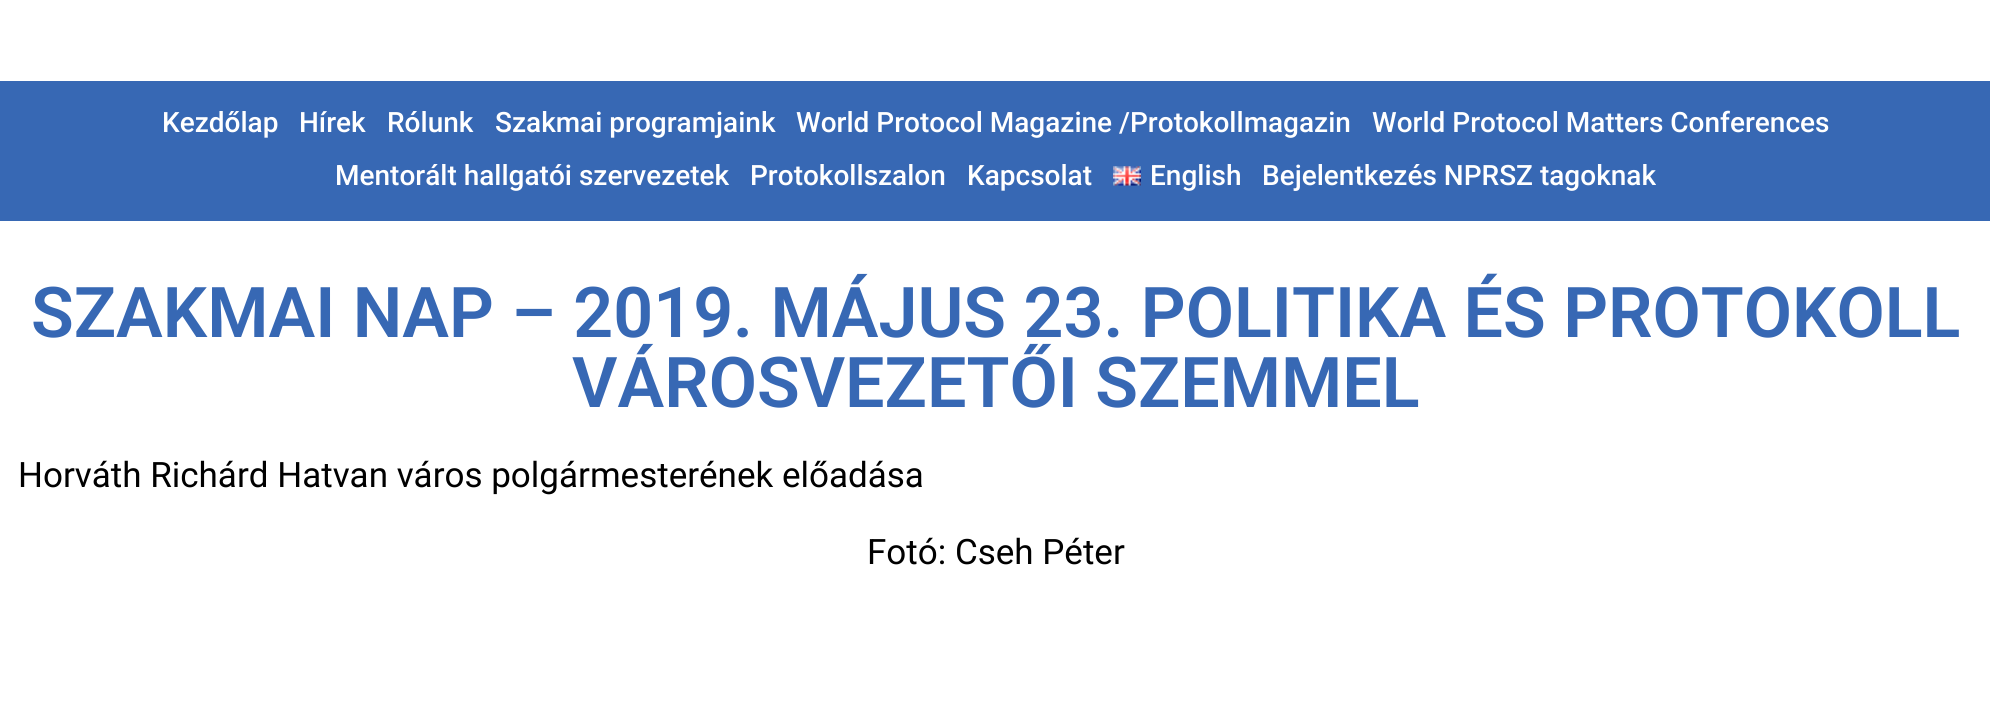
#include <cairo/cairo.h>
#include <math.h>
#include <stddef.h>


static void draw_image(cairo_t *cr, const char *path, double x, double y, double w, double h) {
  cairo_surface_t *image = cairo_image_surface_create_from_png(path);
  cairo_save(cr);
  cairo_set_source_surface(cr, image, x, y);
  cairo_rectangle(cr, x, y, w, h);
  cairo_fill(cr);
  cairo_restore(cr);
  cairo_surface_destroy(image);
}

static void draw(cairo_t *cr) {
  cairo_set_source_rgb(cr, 1, 1, 1);
  cairo_paint(cr);
  cairo_set_source_rgb(cr, 55 / 255.0, 104 / 255.0, 180 / 255.0);
  cairo_rectangle(cr, 0, 81, 1990, 140);
  cairo_fill(cr);
  draw_image(cr, "images/1.png", 1113, 166, 28, 20);
  cairo_select_font_face(cr, "Roboto Medium", CAIRO_FONT_SLANT_NORMAL, CAIRO_FONT_WEIGHT_NORMAL);
  cairo_set_font_size(cr, 28);
  cairo_set_source_rgb(cr, 1, 1, 1);
  cairo_move_to(cr, 162, 132);
  cairo_show_text(cr, "Kezdőlap");
  cairo_move_to(cr, 299, 132);
  cairo_show_text(cr, "Hírek");
  cairo_move_to(cr, 387, 132);
  cairo_show_text(cr, "Rólunk");
  cairo_move_to(cr, 495, 132);
  cairo_show_text(cr, "Szakmai programjaink");
  cairo_move_to(cr, 796, 132);
  cairo_show_text(cr, "World Protocol Magazine /Protokollmagazin");
  cairo_move_to(cr, 1372, 132);
  cairo_show_text(cr, "World Protocol Matters Conferences");
  cairo_move_to(cr, 335, 185);
  cairo_show_text(cr, "Mentorált hallgatói szervezetek");
  cairo_move_to(cr, 750, 185);
  cairo_show_text(cr, "Protokollszalon");
  cairo_move_to(cr, 967, 185);
  cairo_show_text(cr, "Kapcsolat");
  cairo_move_to(cr, 1150, 185);
  cairo_show_text(cr, "English");
  cairo_move_to(cr, 1262, 185);
  cairo_show_text(cr, "Bejelentkezés NPRSZ tagoknak");
  cairo_select_font_face(cr, "Roboto SemiBold", CAIRO_FONT_SLANT_NORMAL, CAIRO_FONT_WEIGHT_NORMAL);
  cairo_set_font_size(cr, 70);
  cairo_set_source_rgb(cr, 55 / 255.0, 104 / 255.0, 180 / 255.0);
  cairo_move_to(cr, 31, 337);
  cairo_show_text(cr, "SZAKMAI NAP – 2019. MÁJUS 23. POLITIKA ÉS PROTOKOLL");
  cairo_move_to(cr, 572, 407);
  cairo_show_text(cr, "VÁROSVEZETŐI SZEMMEL");
  cairo_select_font_face(cr, "Roboto", CAIRO_FONT_SLANT_NORMAL, CAIRO_FONT_WEIGHT_NORMAL);
  cairo_set_font_size(cr, 35);
  cairo_set_source_rgb(cr, 0, 0, 0);
  cairo_move_to(cr, 18, 487);
  cairo_show_text(cr, "Horváth Richárd Hatvan város polgármesterének előadása");
  cairo_move_to(cr, 867, 564);
  cairo_show_text(cr, "Fotó: Cseh Péter");
}

int main(void) {
  cairo_surface_t *surface = cairo_image_surface_create(CAIRO_FORMAT_RGB24, 1990, 720);
  cairo_t *cr = cairo_create(surface);
  cairo_font_options_t *options = cairo_font_options_create();
  cairo_font_options_set_hint_metrics(options, CAIRO_HINT_METRICS_OFF);
  cairo_font_options_set_hint_style(options, CAIRO_HINT_STYLE_NONE);
  cairo_set_font_options(cr, options);
  cairo_set_miter_limit(cr, 4);
  draw(cr);
  cairo_surface_write_to_png(surface, "out.png");
  cairo_font_options_destroy(options);
  cairo_destroy(cr);
  cairo_surface_destroy(surface);
  return 0;
}
